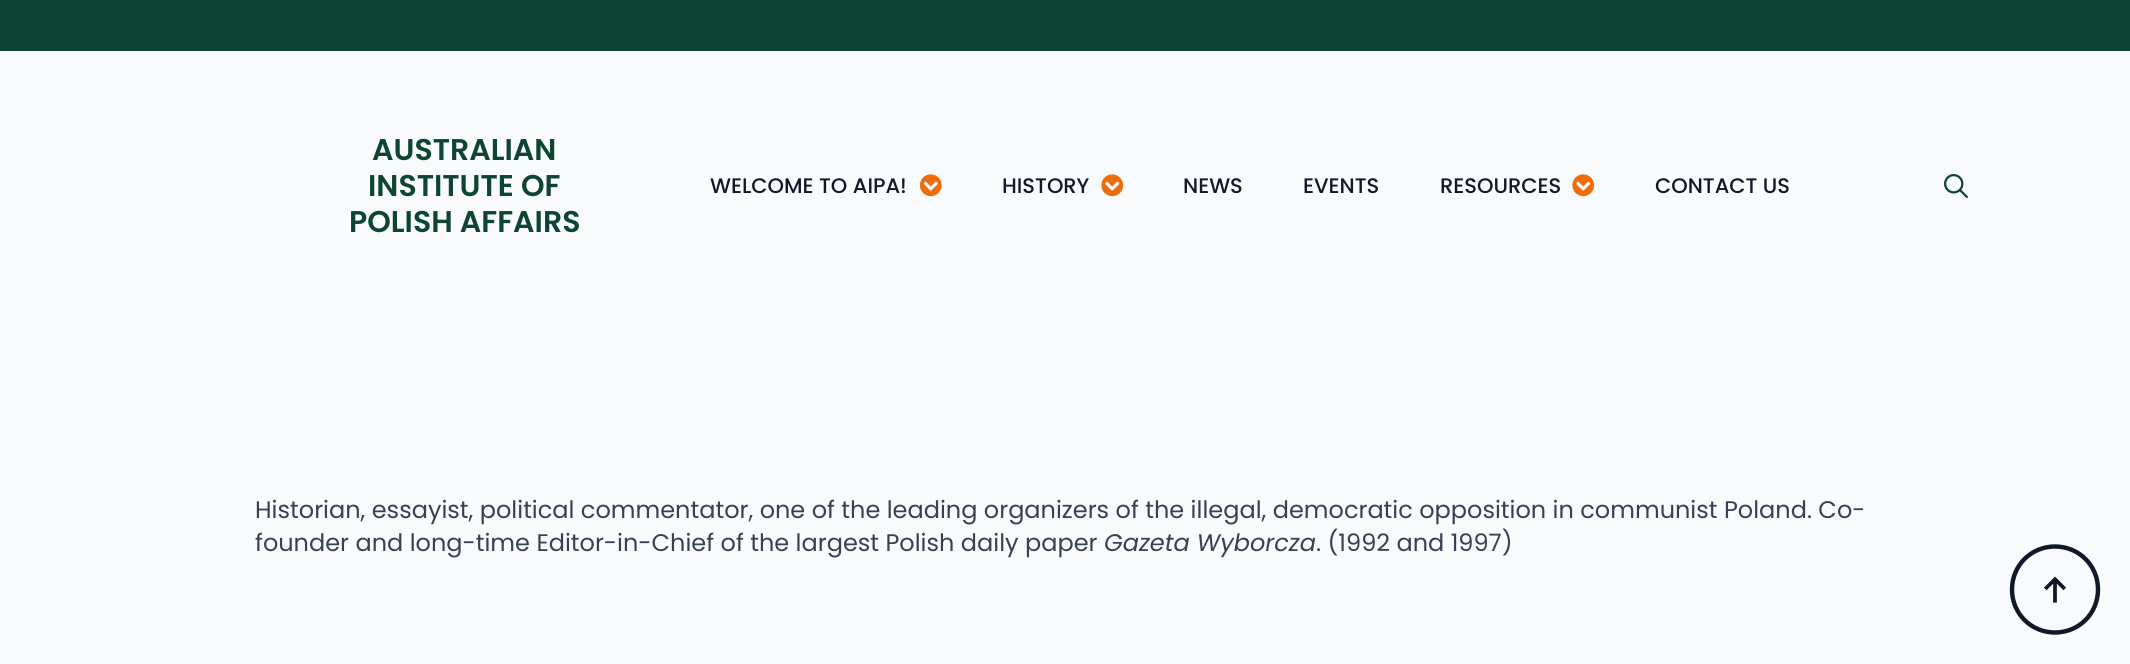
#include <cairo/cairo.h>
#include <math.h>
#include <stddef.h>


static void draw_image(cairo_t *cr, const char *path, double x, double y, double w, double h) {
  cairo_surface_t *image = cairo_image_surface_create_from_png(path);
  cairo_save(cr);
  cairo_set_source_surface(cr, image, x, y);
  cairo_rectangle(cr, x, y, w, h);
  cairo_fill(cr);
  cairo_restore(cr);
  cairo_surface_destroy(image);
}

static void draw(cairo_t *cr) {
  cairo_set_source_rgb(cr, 249 / 255.0, 250 / 255.0, 251 / 255.0);
  cairo_paint(cr);
  cairo_set_source_rgb(cr, 13 / 255.0, 68 / 255.0, 51 / 255.0);
  cairo_rectangle(cr, 0, 0, 2130, 51);
  cairo_fill(cr);
  draw_image(cr, "images/1.png", 920, 174, 22, 23);
  draw_image(cr, "images/2.png", 1101, 174, 23, 23);
  draw_image(cr, "images/2.png", 1572, 174, 23, 23);
  draw_image(cr, "images/3.png", 1944, 174, 24, 24);
  draw_image(cr, "images/4.png", 2044, 576, 22, 27);
  cairo_new_path(cr);
  cairo_move_to(cr, 2055, 546.5);
  cairo_curve_to(cr, 2079, 546.5, 2098, 565.5, 2098, 589.5);
  cairo_curve_to(cr, 2098, 613.5, 2079, 632.5, 2055, 632.5);
  cairo_curve_to(cr, 2031, 632.5, 2012, 613.5, 2012, 589.5);
  cairo_curve_to(cr, 2012, 565.5, 2031, 546.5, 2055, 546.5);
  cairo_set_source_rgb(cr, 229 / 255.0, 231 / 255.0, 235 / 255.0);
  cairo_set_line_width(cr, 4.4);
  cairo_set_line_cap(cr, CAIRO_LINE_CAP_ROUND);
  cairo_stroke(cr);
  cairo_new_path(cr);
  cairo_move_to(cr, 2055, 546.5);
  cairo_curve_to(cr, 2079, 546.5, 2098, 565.5, 2098, 589.5);
  cairo_curve_to(cr, 2098, 613.5, 2079, 632.5, 2055, 632.5);
  cairo_curve_to(cr, 2031, 632.5, 2012, 613.5, 2012, 589.5);
  cairo_curve_to(cr, 2012, 565.5, 2031, 546.5, 2055, 546.5);
  cairo_set_source_rgb(cr, 17 / 255.0, 24 / 255.0, 39 / 255.0);
  cairo_stroke(cr);
  cairo_select_font_face(cr, "Poppins SemiBold", CAIRO_FONT_SLANT_NORMAL, CAIRO_FONT_WEIGHT_NORMAL);
  cairo_set_font_size(cr, 30);
  cairo_set_source_rgb(cr, 13 / 255.0, 68 / 255.0, 51 / 255.0);
  cairo_move_to(cr, 372, 160);
  cairo_show_text(cr, "AUSTRALIAN");
  cairo_move_to(cr, 368, 196);
  cairo_show_text(cr, "INSTITUTE OF");
  cairo_move_to(cr, 349, 232);
  cairo_show_text(cr, "POLISH AFFAIRS");
  cairo_select_font_face(cr, "Poppins Medium", CAIRO_FONT_SLANT_NORMAL, CAIRO_FONT_WEIGHT_NORMAL);
  cairo_set_font_size(cr, 21);
  cairo_set_source_rgb(cr, 17 / 255.0, 24 / 255.0, 39 / 255.0);
  cairo_move_to(cr, 710, 193);
  cairo_show_text(cr, "WELCOME TO AIPA!");
  cairo_move_to(cr, 1002, 193);
  cairo_show_text(cr, "HISTORY");
  cairo_move_to(cr, 1183, 193);
  cairo_show_text(cr, "NEWS");
  cairo_move_to(cr, 1303, 193);
  cairo_show_text(cr, "EVENTS");
  cairo_move_to(cr, 1440, 193);
  cairo_show_text(cr, "RESOURCES");
  cairo_move_to(cr, 1655, 193);
  cairo_show_text(cr, "CONTACT US");
  cairo_select_font_face(cr, "Poppins", CAIRO_FONT_SLANT_NORMAL, CAIRO_FONT_WEIGHT_NORMAL);
  cairo_set_font_size(cr, 24);
  cairo_set_source_rgb(cr, 55 / 255.0, 65 / 255.0, 81 / 255.0);
  cairo_move_to(cr, 255, 518);
  cairo_show_text(cr, "Historian, essayist, political commentator, one of the leading organizers of the illegal, democratic opposition in communist Poland. Co-");
  cairo_move_to(cr, 255, 551);
  cairo_show_text(cr, "founder and long-time Editor-in-Chief of the largest Polish daily paper");
  cairo_select_font_face(cr, "Poppins", CAIRO_FONT_SLANT_ITALIC, CAIRO_FONT_WEIGHT_NORMAL);
  cairo_move_to(cr, 1104, 551);
  cairo_show_text(cr, "Gazeta Wyborcza");
  cairo_select_font_face(cr, "Poppins", CAIRO_FONT_SLANT_NORMAL, CAIRO_FONT_WEIGHT_NORMAL);
  cairo_move_to(cr, 1316, 551);
  cairo_show_text(cr, ". (1992 and 1997)");
}

int main(void) {
  cairo_surface_t *surface = cairo_image_surface_create(CAIRO_FORMAT_RGB24, 2130, 664);
  cairo_t *cr = cairo_create(surface);
  cairo_font_options_t *options = cairo_font_options_create();
  cairo_font_options_set_hint_metrics(options, CAIRO_HINT_METRICS_OFF);
  cairo_font_options_set_hint_style(options, CAIRO_HINT_STYLE_NONE);
  cairo_set_font_options(cr, options);
  cairo_set_miter_limit(cr, 4);
  draw(cr);
  cairo_surface_write_to_png(surface, "out.png");
  cairo_font_options_destroy(options);
  cairo_destroy(cr);
  cairo_surface_destroy(surface);
  return 0;
}
